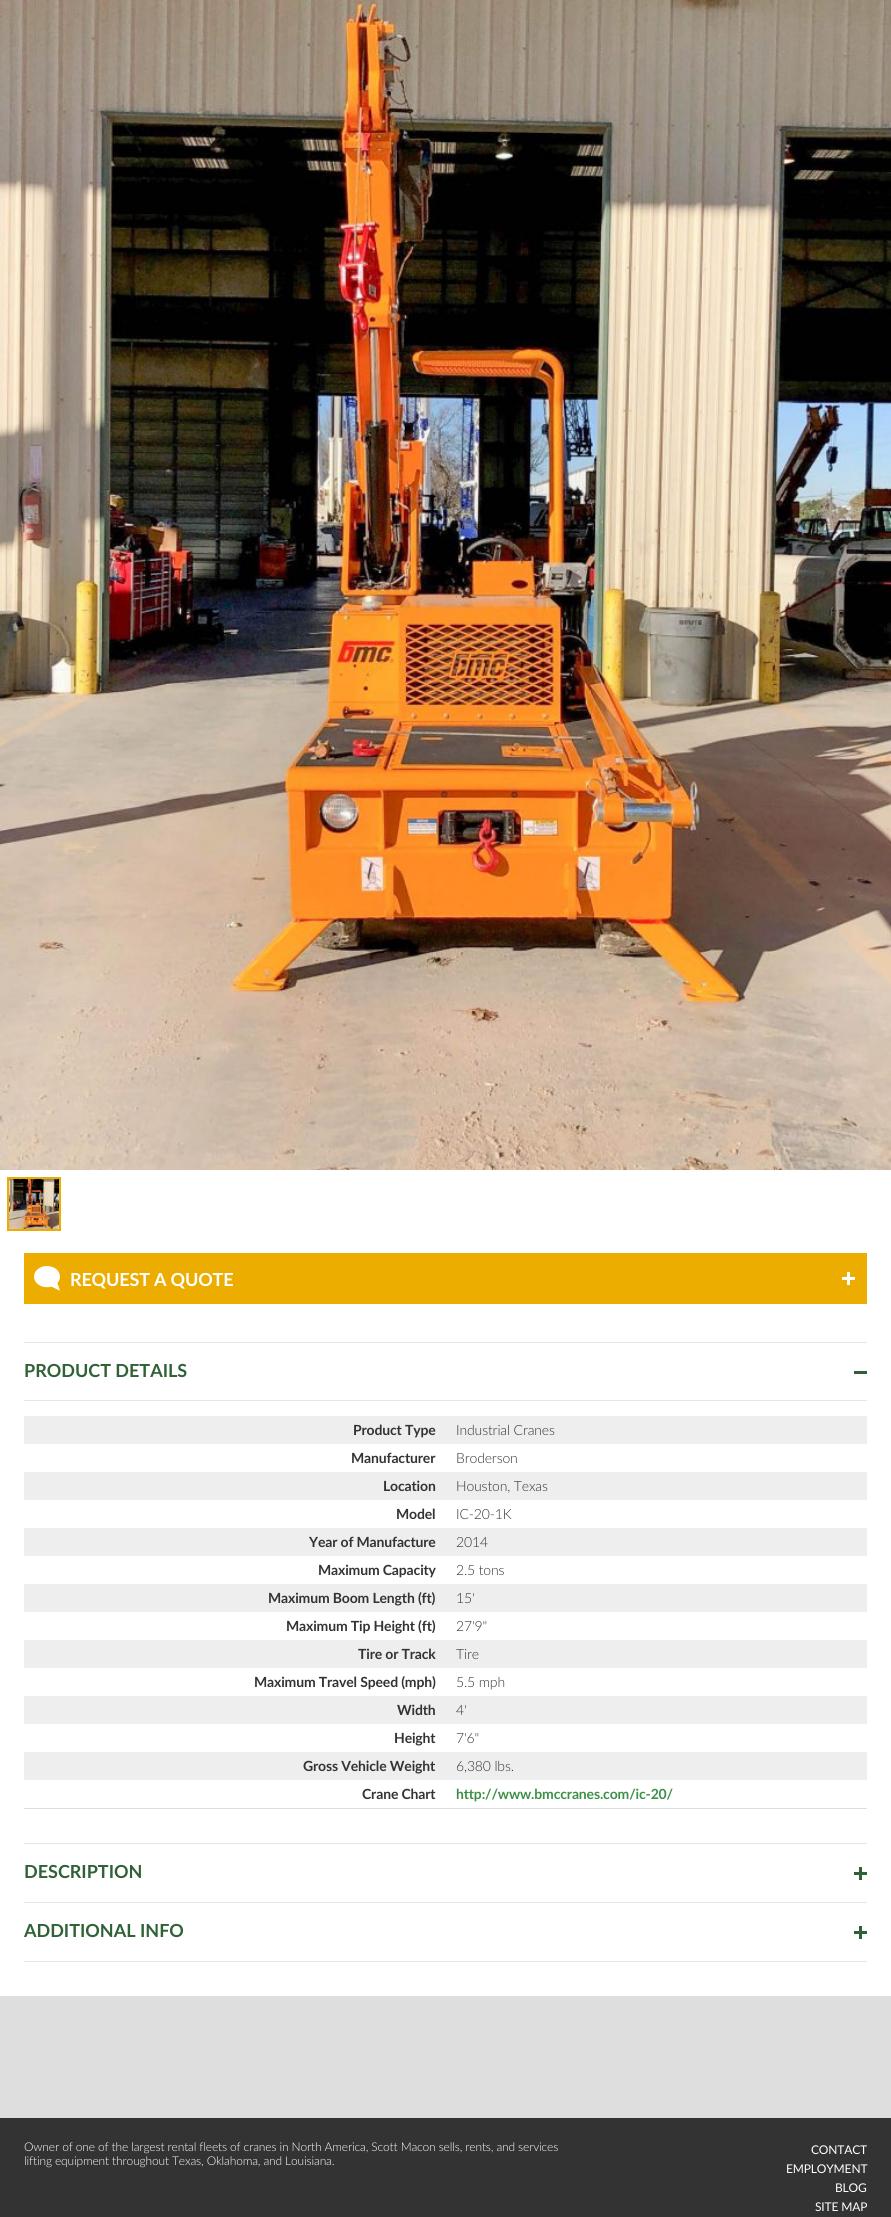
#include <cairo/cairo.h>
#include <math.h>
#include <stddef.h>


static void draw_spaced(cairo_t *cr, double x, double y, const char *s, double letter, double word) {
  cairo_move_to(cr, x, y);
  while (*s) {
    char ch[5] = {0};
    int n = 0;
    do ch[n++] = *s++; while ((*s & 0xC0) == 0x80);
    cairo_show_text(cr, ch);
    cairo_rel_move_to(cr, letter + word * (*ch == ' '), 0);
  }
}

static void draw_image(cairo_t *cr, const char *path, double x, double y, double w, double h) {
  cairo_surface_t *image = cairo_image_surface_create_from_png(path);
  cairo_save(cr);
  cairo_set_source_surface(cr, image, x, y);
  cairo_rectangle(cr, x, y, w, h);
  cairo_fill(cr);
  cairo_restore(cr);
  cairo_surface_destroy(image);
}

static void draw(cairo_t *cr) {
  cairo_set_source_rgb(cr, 1, 1, 1);
  cairo_paint(cr);
  draw_image(cr, "images/1.png", 0, 0, 891, 1170);
  draw_image(cr, "images/2.png", 9, 1179, 50, 50);
  cairo_rectangle(cr, 8, 1178, 52, 52);
  cairo_set_source_rgb(cr, 237 / 255.0, 173 / 255.0, 0);
  cairo_stroke(cr);
  cairo_rectangle(cr, 24, 1253, 843, 51);
  cairo_fill(cr);
  draw_image(cr, "images/3.png", 34, 1266, 26, 25);
  cairo_set_source_rgb(cr, 1, 1, 1);
  cairo_rectangle(cr, 847, 1272, 3, 13);
  cairo_fill(cr);
  cairo_rectangle(cr, 842, 1277, 13, 3);
  cairo_fill(cr);
  cairo_set_source_rgb(cr, 230 / 255.0, 230 / 255.0, 230 / 255.0);
  cairo_rectangle(cr, 24, 1342, 843, 1);
  cairo_fill(cr);
  cairo_rectangle(cr, 24, 1400, 843, 1);
  cairo_fill(cr);
  cairo_set_source_rgb(cr, 48 / 255.0, 97 / 255.0, 54 / 255.0);
  cairo_rectangle(cr, 854, 1371, 13, 3);
  cairo_fill(cr);
  cairo_set_source_rgb(cr, 221 / 255.0, 221 / 255.0, 221 / 255.0);
  cairo_rectangle(cr, 24, 1808, 843, 1);
  cairo_fill(cr);
  cairo_set_source_rgb(cr, 238 / 255.0, 238 / 255.0, 238 / 255.0);
  cairo_rectangle(cr, 24, 1416, 843, 28);
  cairo_fill(cr);
  cairo_rectangle(cr, 24, 1472, 843, 28);
  cairo_fill(cr);
  cairo_rectangle(cr, 24, 1528, 843, 28);
  cairo_fill(cr);
  cairo_rectangle(cr, 24, 1584, 843, 28);
  cairo_fill(cr);
  cairo_rectangle(cr, 24, 1640, 843, 28);
  cairo_fill(cr);
  cairo_rectangle(cr, 24, 1696, 843, 28);
  cairo_fill(cr);
  cairo_rectangle(cr, 24, 1752, 843, 28);
  cairo_fill(cr);
  cairo_set_source_rgb(cr, 230 / 255.0, 230 / 255.0, 230 / 255.0);
  cairo_rectangle(cr, 24, 1843, 843, 1);
  cairo_fill(cr);
  cairo_rectangle(cr, 24, 1902, 843, 1);
  cairo_fill(cr);
  cairo_set_source_rgb(cr, 48 / 255.0, 97 / 255.0, 54 / 255.0);
  cairo_rectangle(cr, 859, 1867, 3, 13);
  cairo_fill(cr);
  cairo_rectangle(cr, 854, 1872, 13, 3);
  cairo_fill(cr);
  cairo_set_source_rgb(cr, 230 / 255.0, 230 / 255.0, 230 / 255.0);
  cairo_rectangle(cr, 24, 1961, 843, 1);
  cairo_fill(cr);
  cairo_set_source_rgb(cr, 48 / 255.0, 97 / 255.0, 54 / 255.0);
  cairo_rectangle(cr, 859, 1926, 3, 13);
  cairo_fill(cr);
  cairo_rectangle(cr, 854, 1931, 13, 3);
  cairo_fill(cr);
  cairo_set_source_rgb(cr, 222 / 255.0, 222 / 255.0, 222 / 255.0);
  cairo_rectangle(cr, 0, 1996, 24, 122);
  cairo_fill(cr);
  cairo_rectangle(cr, 24, 1996, 867, 122);
  cairo_fill(cr);
  cairo_set_source_rgb(cr, 51 / 255.0, 51 / 255.0, 51 / 255.0);
  cairo_rectangle(cr, 0, 2118, 891, 99);
  cairo_fill(cr);
  cairo_select_font_face(cr, "Lato", CAIRO_FONT_SLANT_NORMAL, CAIRO_FONT_WEIGHT_BOLD);
  cairo_set_font_size(cr, 18);
  cairo_set_source_rgb(cr, 1, 1, 1);
  draw_spaced(cr, 70, 1286, "REQUEST A QUOTE", -0.15, 0);
  cairo_set_source_rgb(cr, 48 / 255.0, 98 / 255.0, 55 / 255.0);
  cairo_move_to(cr, 24, 1377);
  cairo_show_text(cr, "PRODUCT DETAILS");
  cairo_set_font_size(cr, 14);
  cairo_set_source_rgb(cr, 51 / 255.0, 51 / 255.0, 51 / 255.0);
  draw_spaced(cr, 353, 1435, "Product Type", -0.15, 0);
  cairo_select_font_face(cr, "Lato Light", CAIRO_FONT_SLANT_NORMAL, CAIRO_FONT_WEIGHT_NORMAL);
  draw_spaced(cr, 456, 1435, "Industrial Cranes", -0.15, 0);
  cairo_select_font_face(cr, "Lato", CAIRO_FONT_SLANT_NORMAL, CAIRO_FONT_WEIGHT_BOLD);
  draw_spaced(cr, 351, 1463, "Manufacturer", -0.15, 0);
  cairo_select_font_face(cr, "Lato Light", CAIRO_FONT_SLANT_NORMAL, CAIRO_FONT_WEIGHT_NORMAL);
  draw_spaced(cr, 456, 1463, "Broderson", -0.15, 0);
  cairo_select_font_face(cr, "Lato", CAIRO_FONT_SLANT_NORMAL, CAIRO_FONT_WEIGHT_BOLD);
  draw_spaced(cr, 383, 1491, "Location", -0.15, 0);
  cairo_select_font_face(cr, "Lato Light", CAIRO_FONT_SLANT_NORMAL, CAIRO_FONT_WEIGHT_NORMAL);
  draw_spaced(cr, 456, 1491, "Houston, Texas", -0.15, 0);
  cairo_select_font_face(cr, "Lato", CAIRO_FONT_SLANT_NORMAL, CAIRO_FONT_WEIGHT_BOLD);
  draw_spaced(cr, 396, 1519, "Model", -0.15, 0);
  cairo_select_font_face(cr, "Lato Light", CAIRO_FONT_SLANT_NORMAL, CAIRO_FONT_WEIGHT_NORMAL);
  draw_spaced(cr, 456, 1519, "IC-20-1K", -0.15, 0);
  cairo_select_font_face(cr, "Lato", CAIRO_FONT_SLANT_NORMAL, CAIRO_FONT_WEIGHT_BOLD);
  draw_spaced(cr, 309, 1547, "Year of Manufacture", -0.15, 0);
  cairo_select_font_face(cr, "Lato Light", CAIRO_FONT_SLANT_NORMAL, CAIRO_FONT_WEIGHT_NORMAL);
  draw_spaced(cr, 456, 1547, "2014", -0.15, 0);
  cairo_select_font_face(cr, "Lato", CAIRO_FONT_SLANT_NORMAL, CAIRO_FONT_WEIGHT_BOLD);
  draw_spaced(cr, 318, 1575, "Maximum Capacity", -0.15, 0);
  cairo_select_font_face(cr, "Lato Light", CAIRO_FONT_SLANT_NORMAL, CAIRO_FONT_WEIGHT_NORMAL);
  draw_spaced(cr, 456, 1575, "2.5 tons", -0.15, 0);
  cairo_select_font_face(cr, "Lato", CAIRO_FONT_SLANT_NORMAL, CAIRO_FONT_WEIGHT_BOLD);
  draw_spaced(cr, 268, 1603, "Maximum Boom Length (ft)", -0.15, 0);
  cairo_select_font_face(cr, "Lato Light", CAIRO_FONT_SLANT_NORMAL, CAIRO_FONT_WEIGHT_NORMAL);
  draw_spaced(cr, 456, 1603, "15'", -0.15, 0);
  cairo_select_font_face(cr, "Lato", CAIRO_FONT_SLANT_NORMAL, CAIRO_FONT_WEIGHT_BOLD);
  draw_spaced(cr, 286, 1631, "Maximum Tip Height (ft)", -0.15, 0);
  cairo_select_font_face(cr, "Lato Light", CAIRO_FONT_SLANT_NORMAL, CAIRO_FONT_WEIGHT_NORMAL);
  draw_spaced(cr, 456, 1631, "27'9\"", -0.15, 0);
  cairo_select_font_face(cr, "Lato", CAIRO_FONT_SLANT_NORMAL, CAIRO_FONT_WEIGHT_BOLD);
  draw_spaced(cr, 358, 1659, "Tire or Track", -0.15, 0);
  cairo_select_font_face(cr, "Lato Light", CAIRO_FONT_SLANT_NORMAL, CAIRO_FONT_WEIGHT_NORMAL);
  draw_spaced(cr, 456, 1659, "Tire", -0.15, 0);
  cairo_select_font_face(cr, "Lato", CAIRO_FONT_SLANT_NORMAL, CAIRO_FONT_WEIGHT_BOLD);
  draw_spaced(cr, 254, 1687, "Maximum Travel Speed (mph)", -0.15, 0);
  cairo_select_font_face(cr, "Lato Light", CAIRO_FONT_SLANT_NORMAL, CAIRO_FONT_WEIGHT_NORMAL);
  draw_spaced(cr, 456, 1687, "5.5 mph", -0.15, 0);
  cairo_select_font_face(cr, "Lato", CAIRO_FONT_SLANT_NORMAL, CAIRO_FONT_WEIGHT_BOLD);
  draw_spaced(cr, 397, 1715, "Width", -0.15, 0);
  cairo_select_font_face(cr, "Lato Light", CAIRO_FONT_SLANT_NORMAL, CAIRO_FONT_WEIGHT_NORMAL);
  draw_spaced(cr, 456, 1715, "4'", -0.15, 0);
  cairo_select_font_face(cr, "Lato", CAIRO_FONT_SLANT_NORMAL, CAIRO_FONT_WEIGHT_BOLD);
  draw_spaced(cr, 394, 1743, "Height", -0.15, 0);
  cairo_select_font_face(cr, "Lato Light", CAIRO_FONT_SLANT_NORMAL, CAIRO_FONT_WEIGHT_NORMAL);
  draw_spaced(cr, 456, 1743, "7'6\"", -0.15, 0);
  cairo_select_font_face(cr, "Lato", CAIRO_FONT_SLANT_NORMAL, CAIRO_FONT_WEIGHT_BOLD);
  draw_spaced(cr, 303, 1771, "Gross Vehicle Weight", -0.15, 0);
  cairo_select_font_face(cr, "Lato Light", CAIRO_FONT_SLANT_NORMAL, CAIRO_FONT_WEIGHT_NORMAL);
  draw_spaced(cr, 456, 1771, "6,380 lbs.", -0.15, 0);
  cairo_select_font_face(cr, "Lato", CAIRO_FONT_SLANT_NORMAL, CAIRO_FONT_WEIGHT_BOLD);
  draw_spaced(cr, 362, 1799, "Crane Chart", -0.15, 0);
  cairo_set_source_rgb(cr, 61 / 255.0, 144 / 255.0, 71 / 255.0);
  draw_spaced(cr, 456, 1799, "http://www.bmccranes.com/ic-20/", -0.15, 0);
  cairo_set_font_size(cr, 18);
  cairo_set_source_rgb(cr, 48 / 255.0, 98 / 255.0, 55 / 255.0);
  cairo_move_to(cr, 24, 1878);
  cairo_show_text(cr, "DESCRIPTION");
  cairo_move_to(cr, 24, 1937);
  cairo_show_text(cr, "ADDITIONAL INFO");
  cairo_select_font_face(cr, "Lato Light", CAIRO_FONT_SLANT_NORMAL, CAIRO_FONT_WEIGHT_NORMAL);
  cairo_set_font_size(cr, 12);
  cairo_set_source_rgb(cr, 1, 1, 1);
  draw_spaced(cr, 24, 2151, "Owner of one of the largest rental fleets of cranes in North America, Scott Macon sells, rents, and services", -0.15, 0);
  draw_spaced(cr, 24, 2165, "lifting equipment throughout Texas, Oklahoma, and Louisiana.", -0.15, 0);
  cairo_select_font_face(cr, "Lato", CAIRO_FONT_SLANT_NORMAL, CAIRO_FONT_WEIGHT_NORMAL);
  draw_spaced(cr, 811, 2154, "CONTACT", -0.15, 0);
  draw_spaced(cr, 786, 2173, "EMPLOYMENT", -0.15, 0);
  draw_spaced(cr, 835, 2192, "BLOG", -0.15, 0);
  draw_spaced(cr, 815, 2211, "SITE MAP", -0.15, 0);
}

int main(void) {
  cairo_surface_t *surface = cairo_image_surface_create(CAIRO_FORMAT_RGB24, 891, 2217);
  cairo_t *cr = cairo_create(surface);
  cairo_font_options_t *options = cairo_font_options_create();
  cairo_font_options_set_hint_metrics(options, CAIRO_HINT_METRICS_OFF);
  cairo_font_options_set_hint_style(options, CAIRO_HINT_STYLE_NONE);
  cairo_set_font_options(cr, options);
  cairo_set_miter_limit(cr, 4);
  draw(cr);
  cairo_surface_write_to_png(surface, "out.png");
  cairo_font_options_destroy(options);
  cairo_destroy(cr);
  cairo_surface_destroy(surface);
  return 0;
}
